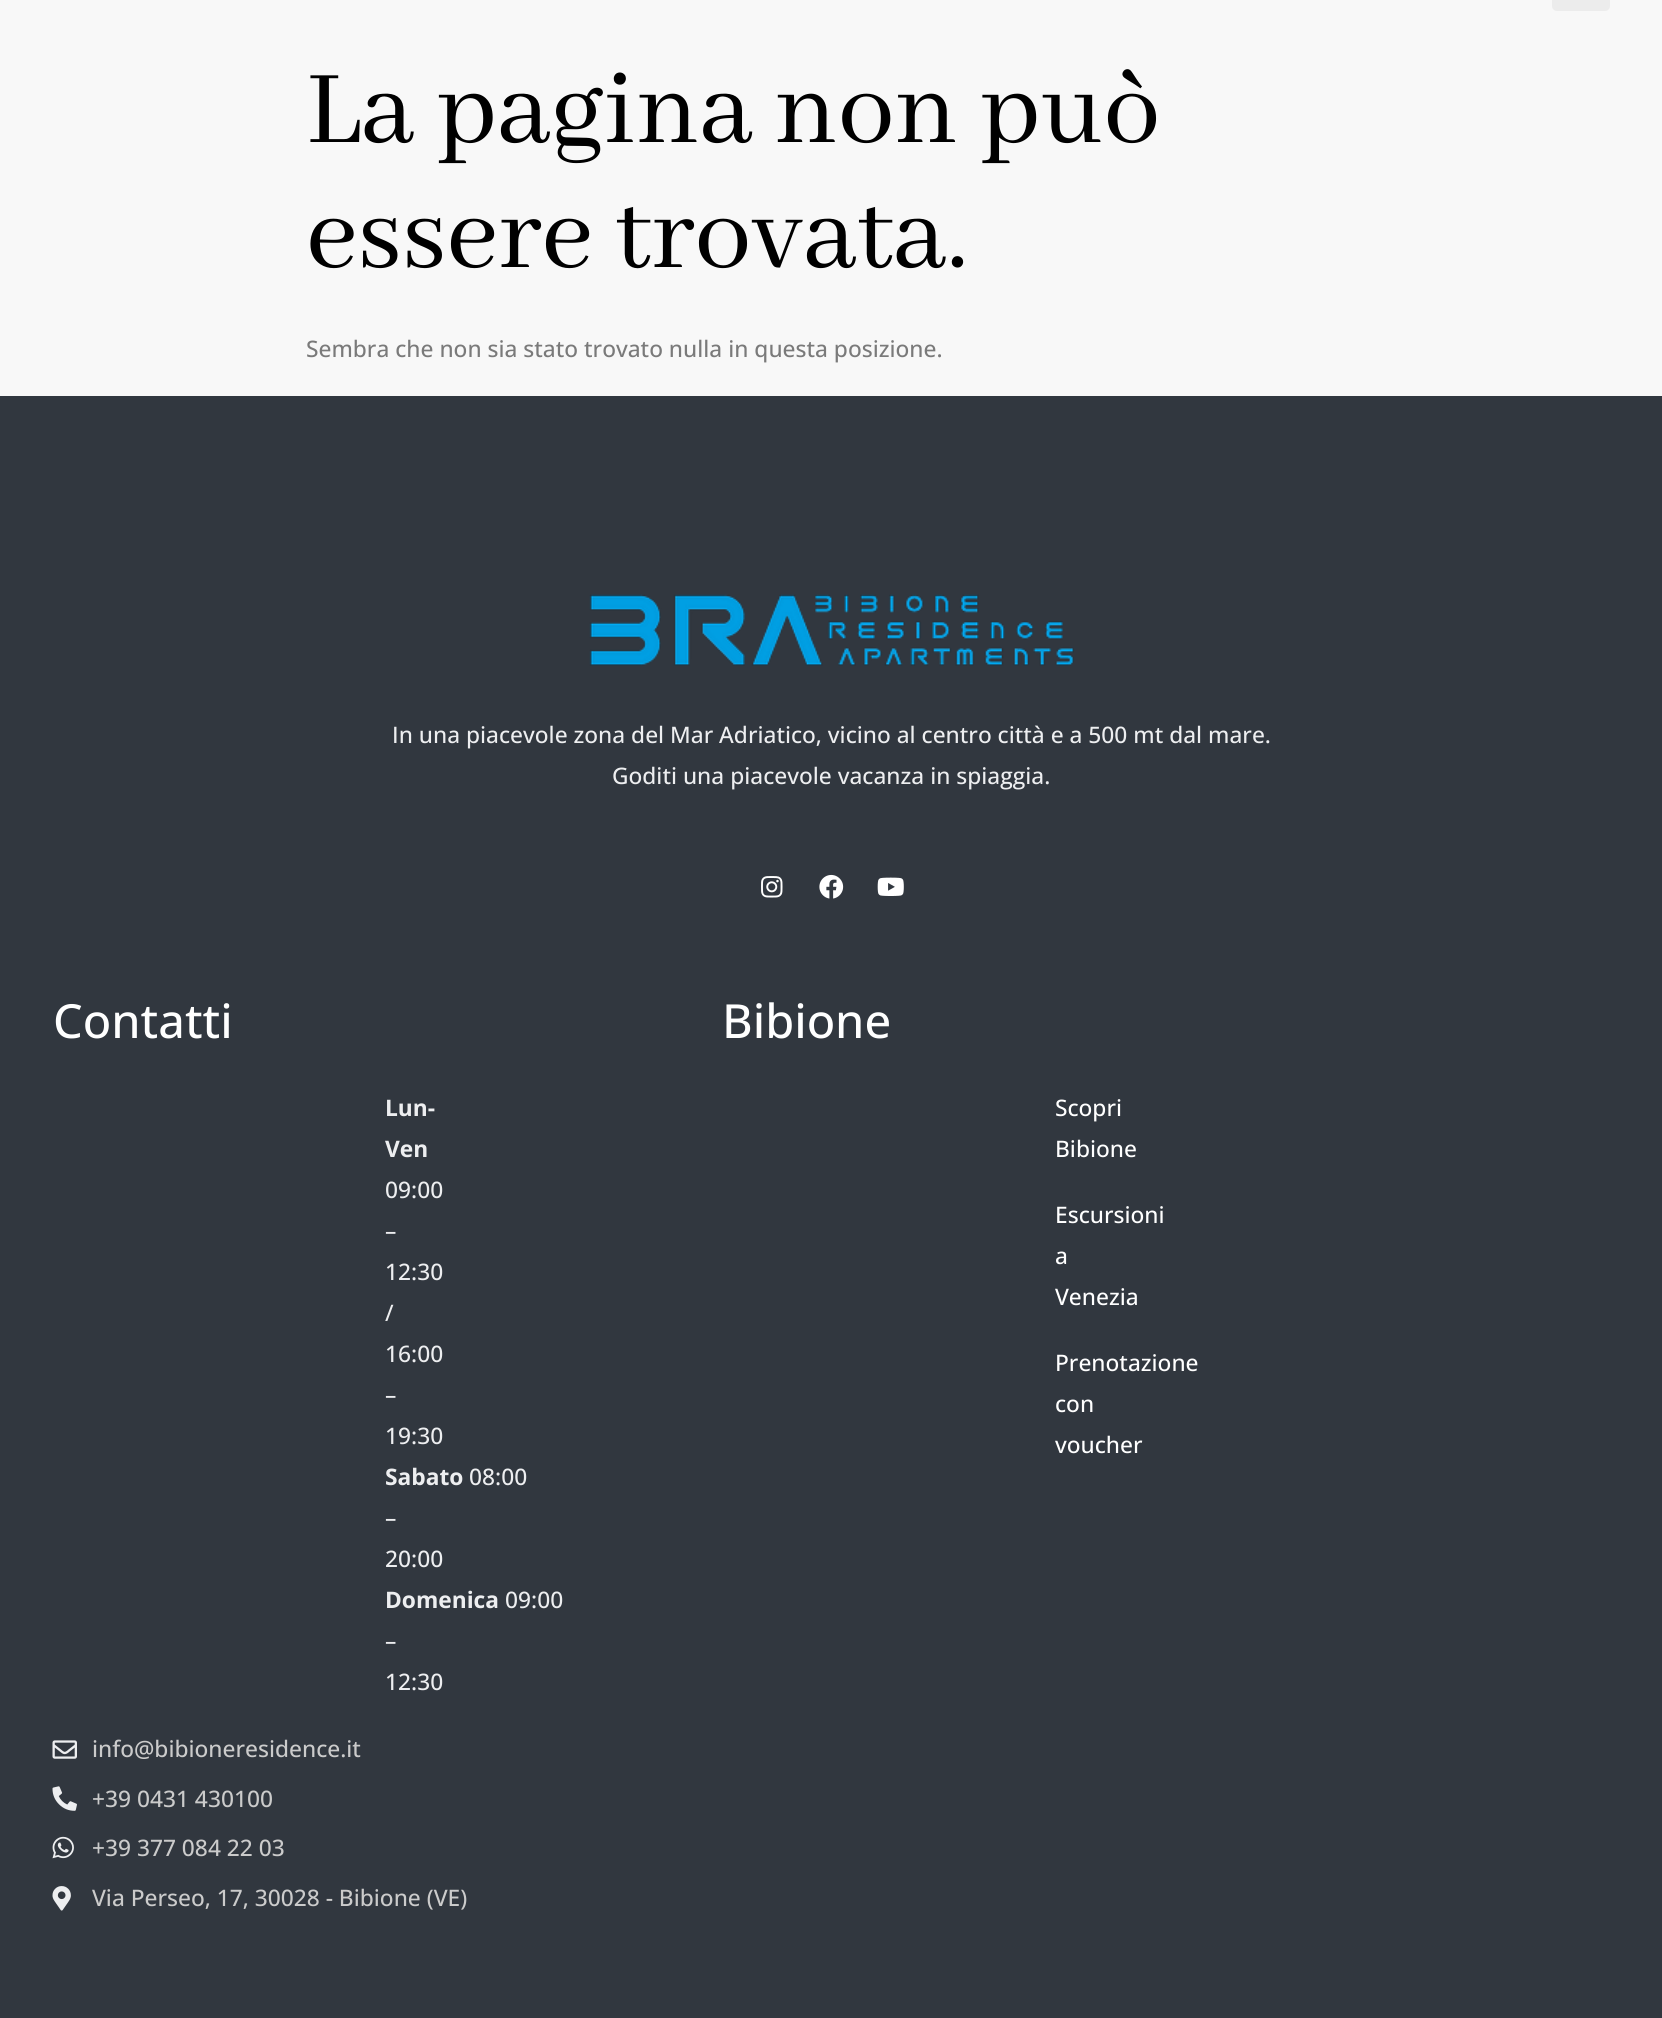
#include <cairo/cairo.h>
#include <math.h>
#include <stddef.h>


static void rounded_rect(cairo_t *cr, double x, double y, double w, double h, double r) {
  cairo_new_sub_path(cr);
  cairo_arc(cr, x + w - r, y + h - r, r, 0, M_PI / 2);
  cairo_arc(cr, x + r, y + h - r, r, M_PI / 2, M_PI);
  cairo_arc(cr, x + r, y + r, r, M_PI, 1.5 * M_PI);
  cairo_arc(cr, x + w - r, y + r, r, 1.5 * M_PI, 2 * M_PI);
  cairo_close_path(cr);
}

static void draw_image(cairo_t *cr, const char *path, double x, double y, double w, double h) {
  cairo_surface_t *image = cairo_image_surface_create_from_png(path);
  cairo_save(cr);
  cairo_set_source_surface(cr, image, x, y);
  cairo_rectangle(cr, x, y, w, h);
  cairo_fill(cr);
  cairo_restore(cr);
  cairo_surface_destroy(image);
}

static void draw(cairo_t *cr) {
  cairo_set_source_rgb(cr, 248 / 255.0, 248 / 255.0, 248 / 255.0);
  cairo_paint(cr);
  cairo_set_source_rgb(cr, 236 / 255.0, 236 / 255.0, 236 / 255.0);
  rounded_rect(cr, 1552, -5, 58, 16, 5);
  cairo_fill(cr);
  cairo_set_source_rgb(cr, 49 / 255.0, 55 / 255.0, 63 / 255.0);
  cairo_rectangle(cr, 0, 396, 1662, 1622);
  cairo_fill(cr);
  draw_image(cr, "images/1.png", 589, 594, 485, 72);
  draw_image(cr, "images/2.png", 761, 876, 22, 22);
  draw_image(cr, "images/3.png", 819, 874, 25, 25);
  draw_image(cr, "images/4.png", 877, 877, 27, 19);
  draw_image(cr, "images/5.png", 52, 1740, 25, 19);
  draw_image(cr, "images/6.png", 52, 1786, 25, 25);
  draw_image(cr, "images/7.png", 52, 1836, 22, 23);
  draw_image(cr, "images/8.png", 52, 1886, 19, 25);
  cairo_select_font_face(cr, "Abhaya Libre", CAIRO_FONT_SLANT_NORMAL, CAIRO_FONT_WEIGHT_NORMAL);
  cairo_set_font_size(cr, 113.75);
  cairo_set_source_rgb(cr, 0, 0, 0);
  cairo_move_to(cr, 306, 142);
  cairo_show_text(cr, "La pagina non può");
  cairo_move_to(cr, 306, 267);
  cairo_show_text(cr, "essere trovata.");
  cairo_select_font_face(cr, "Open Sans Medium", CAIRO_FONT_SLANT_NORMAL, CAIRO_FONT_WEIGHT_NORMAL);
  cairo_set_font_size(cr, 22.75);
  cairo_set_source_rgb(cr, 122 / 255.0, 122 / 255.0, 122 / 255.0);
  cairo_move_to(cr, 306, 357);
  cairo_show_text(cr, "Sembra che non sia stato trovato nulla in questa posizione.");
  cairo_set_source_rgb(cr, 237 / 255.0, 238 / 255.0, 240 / 255.0);
  cairo_move_to(cr, 392, 743);
  cairo_show_text(cr, "In una piacevole zona del Mar Adriatico, vicino al centro città e a 500 mt dal mare.");
  cairo_move_to(cr, 612, 784);
  cairo_show_text(cr, "Goditi una piacevole vacanza in spiaggia.");
  cairo_set_font_size(cr, 47);
  cairo_set_source_rgb(cr, 1, 1, 1);
  cairo_move_to(cr, 53, 1038);
  cairo_show_text(cr, "Contatti");
  cairo_select_font_face(cr, "Open Sans", CAIRO_FONT_SLANT_NORMAL, CAIRO_FONT_WEIGHT_BOLD);
  cairo_set_font_size(cr, 22.75);
  cairo_set_source_rgb(cr, 237 / 255.0, 238 / 255.0, 240 / 255.0);
  cairo_move_to(cr, 385, 1116);
  cairo_show_text(cr, "Lun-");
  cairo_move_to(cr, 385, 1157);
  cairo_show_text(cr, "Ven");
  cairo_select_font_face(cr, "Open Sans Medium", CAIRO_FONT_SLANT_NORMAL, CAIRO_FONT_WEIGHT_NORMAL);
  cairo_move_to(cr, 385, 1198);
  cairo_show_text(cr, "09:00");
  cairo_move_to(cr, 385, 1239);
  cairo_show_text(cr, "–");
  cairo_move_to(cr, 385, 1280);
  cairo_show_text(cr, "12:30");
  cairo_move_to(cr, 385, 1321);
  cairo_show_text(cr, "/");
  cairo_move_to(cr, 385, 1362);
  cairo_show_text(cr, "16:00");
  cairo_move_to(cr, 385, 1403);
  cairo_show_text(cr, "–");
  cairo_move_to(cr, 385, 1444);
  cairo_show_text(cr, "19:30");
  cairo_select_font_face(cr, "Open Sans", CAIRO_FONT_SLANT_NORMAL, CAIRO_FONT_WEIGHT_BOLD);
  cairo_move_to(cr, 385, 1485);
  cairo_show_text(cr, "Sabato");
  cairo_select_font_face(cr, "Open Sans Medium", CAIRO_FONT_SLANT_NORMAL, CAIRO_FONT_WEIGHT_NORMAL);
  cairo_move_to(cr, 469, 1485);
  cairo_show_text(cr, "08:00");
  cairo_move_to(cr, 385, 1526);
  cairo_show_text(cr, "–");
  cairo_move_to(cr, 385, 1567);
  cairo_show_text(cr, "20:00");
  cairo_select_font_face(cr, "Open Sans", CAIRO_FONT_SLANT_NORMAL, CAIRO_FONT_WEIGHT_BOLD);
  cairo_move_to(cr, 385, 1608);
  cairo_show_text(cr, "Domenica");
  cairo_select_font_face(cr, "Open Sans Medium", CAIRO_FONT_SLANT_NORMAL, CAIRO_FONT_WEIGHT_NORMAL);
  cairo_move_to(cr, 505, 1608);
  cairo_show_text(cr, "09:00");
  cairo_move_to(cr, 385, 1649);
  cairo_show_text(cr, "–");
  cairo_move_to(cr, 385, 1690);
  cairo_show_text(cr, "12:30");
  cairo_set_source_rgb(cr, 203 / 255.0, 203 / 255.0, 203 / 255.0);
  cairo_move_to(cr, 92, 1757);
  cairo_show_text(cr, "info@bibioneresidence.it");
  cairo_move_to(cr, 92, 1807);
  cairo_show_text(cr, "+39 0431 430100");
  cairo_move_to(cr, 92, 1856);
  cairo_show_text(cr, "+39 377 084 22 03");
  cairo_move_to(cr, 92, 1906);
  cairo_show_text(cr, "Via Perseo, 17, 30028 - Bibione (VE)");
  cairo_set_font_size(cr, 47);
  cairo_set_source_rgb(cr, 1, 1, 1);
  cairo_move_to(cr, 722, 1038);
  cairo_show_text(cr, "Bibione");
  cairo_set_font_size(cr, 22.75);
  cairo_move_to(cr, 1055, 1116);
  cairo_show_text(cr, "Scopri");
  cairo_move_to(cr, 1055, 1157);
  cairo_show_text(cr, "Bibione");
  cairo_move_to(cr, 1055, 1223);
  cairo_show_text(cr, "Escursioni");
  cairo_move_to(cr, 1055, 1264);
  cairo_show_text(cr, "a");
  cairo_move_to(cr, 1055, 1305);
  cairo_show_text(cr, "Venezia");
  cairo_move_to(cr, 1055, 1371);
  cairo_show_text(cr, "Prenotazione");
  cairo_move_to(cr, 1055, 1412);
  cairo_show_text(cr, "con");
  cairo_move_to(cr, 1055, 1453);
  cairo_show_text(cr, "voucher");
}

int main(void) {
  cairo_surface_t *surface = cairo_image_surface_create(CAIRO_FORMAT_RGB24, 1662, 2018);
  cairo_t *cr = cairo_create(surface);
  cairo_font_options_t *options = cairo_font_options_create();
  cairo_font_options_set_hint_metrics(options, CAIRO_HINT_METRICS_OFF);
  cairo_font_options_set_hint_style(options, CAIRO_HINT_STYLE_NONE);
  cairo_set_font_options(cr, options);
  cairo_set_miter_limit(cr, 4);
  draw(cr);
  cairo_surface_write_to_png(surface, "out.png");
  cairo_font_options_destroy(options);
  cairo_destroy(cr);
  cairo_surface_destroy(surface);
  return 0;
}
